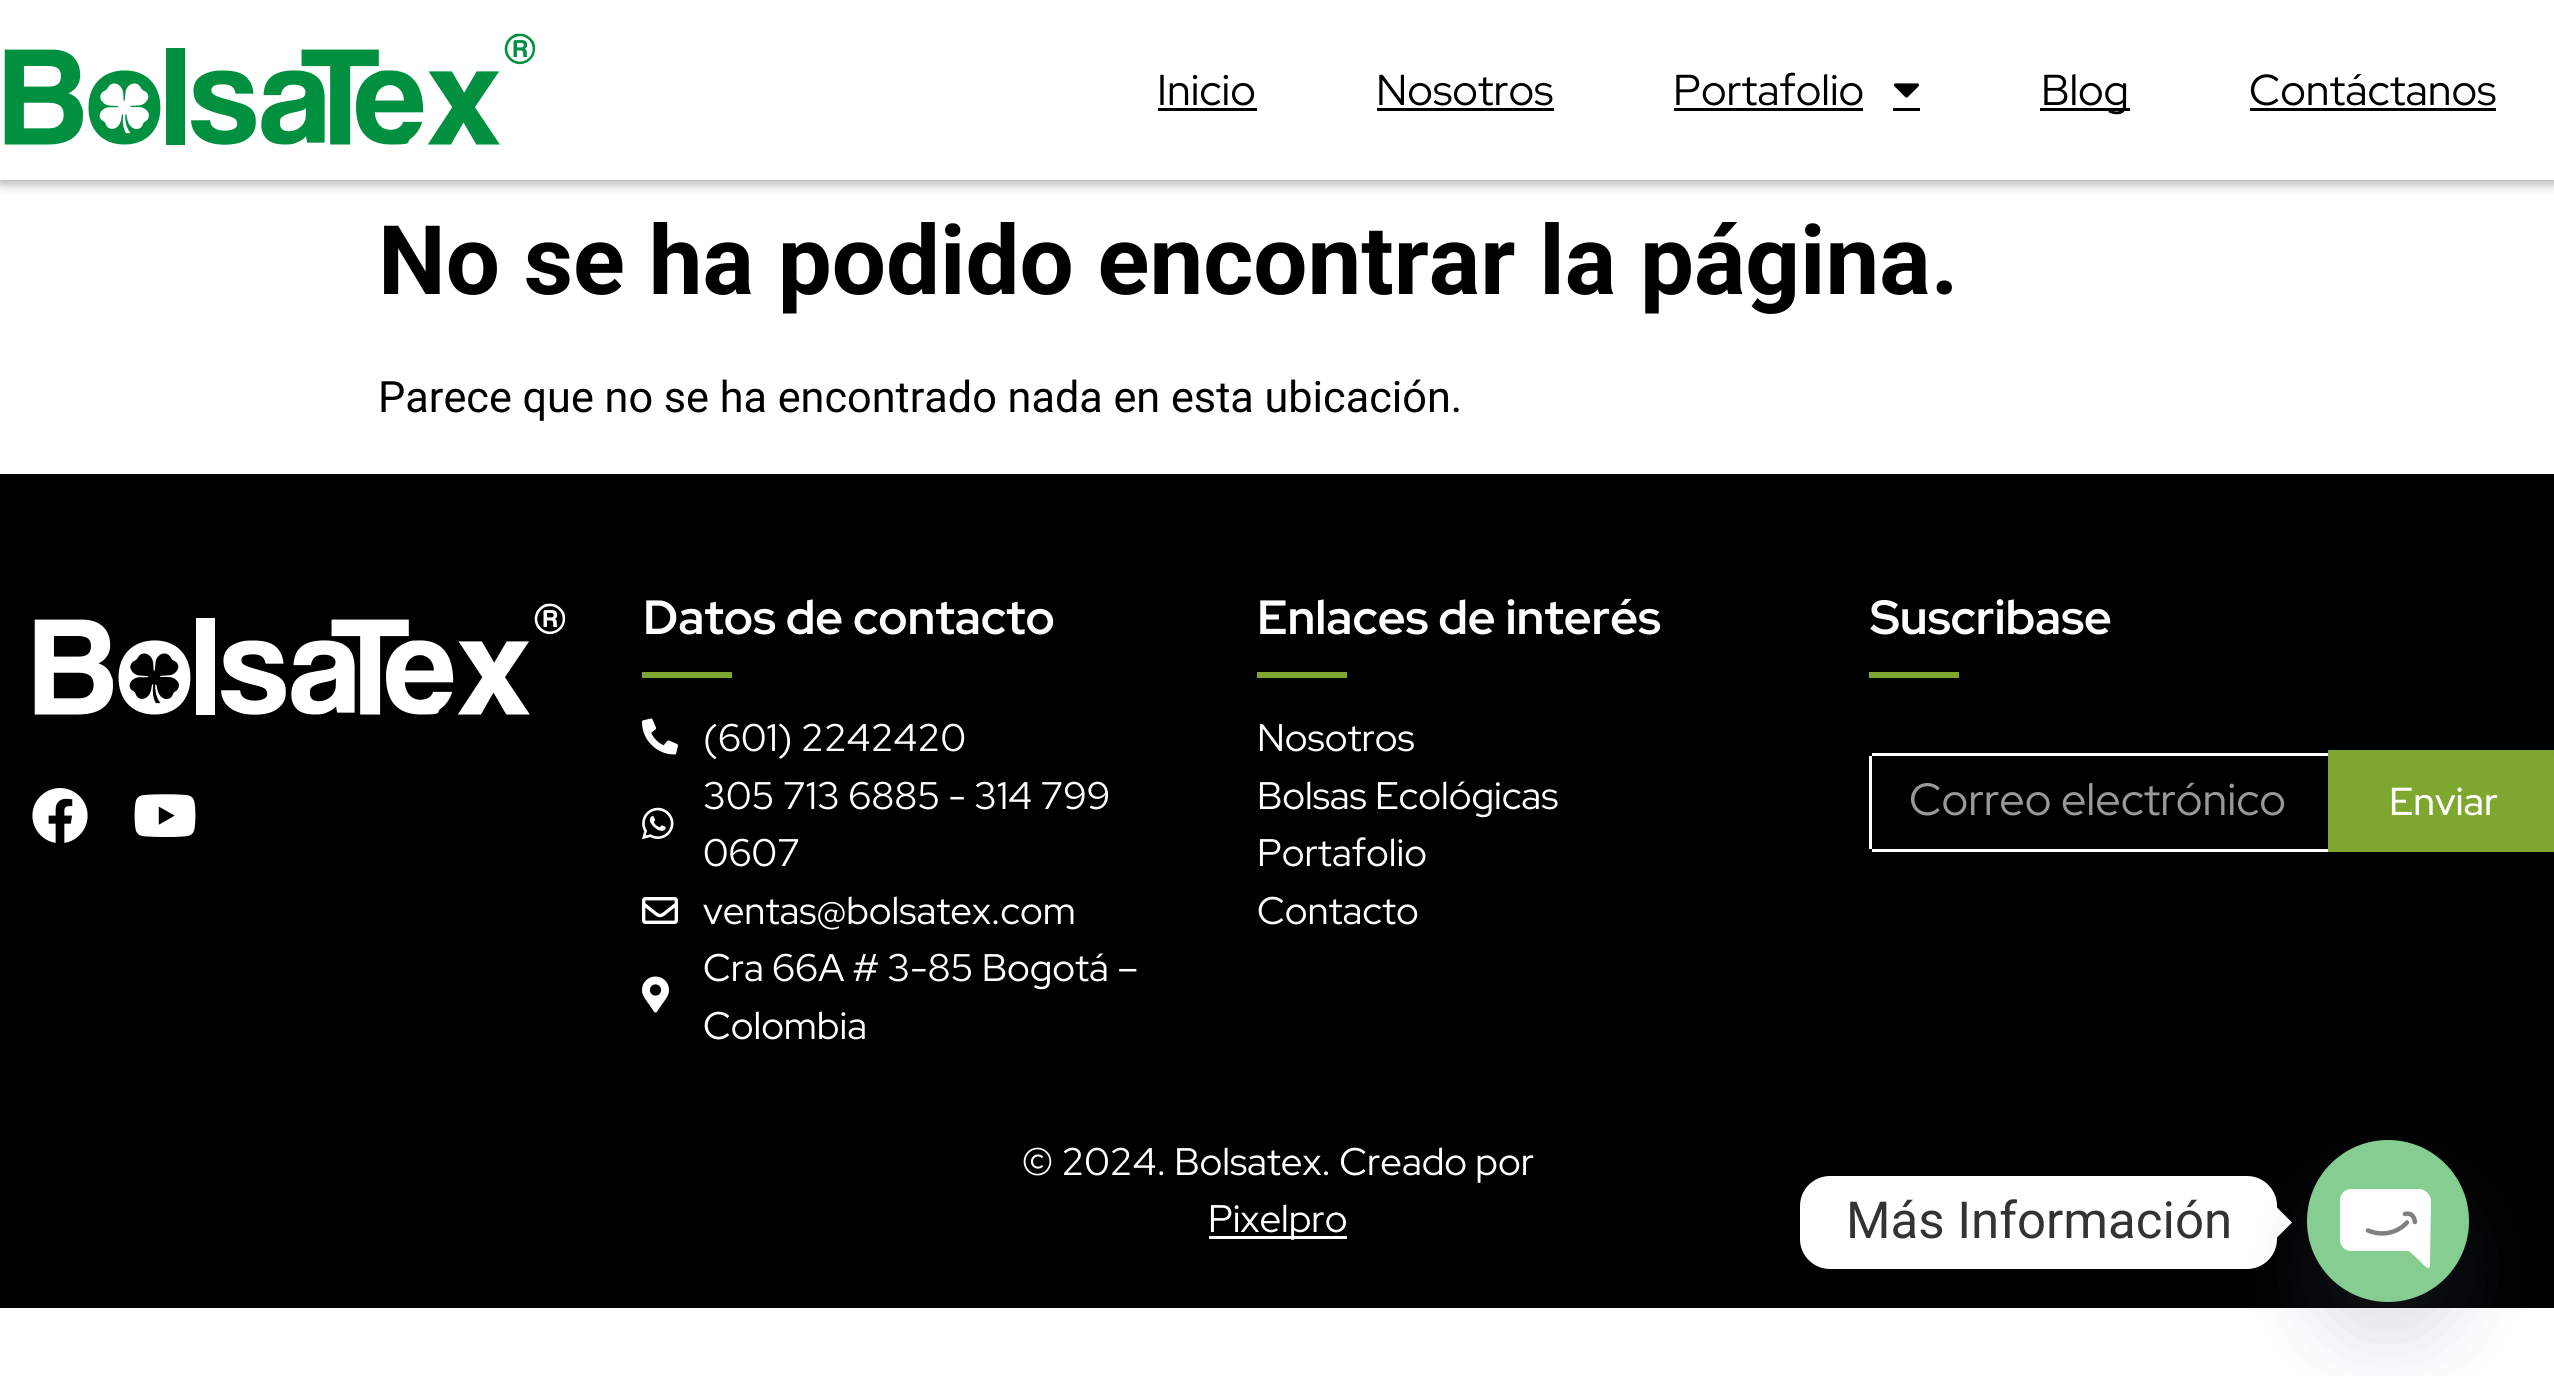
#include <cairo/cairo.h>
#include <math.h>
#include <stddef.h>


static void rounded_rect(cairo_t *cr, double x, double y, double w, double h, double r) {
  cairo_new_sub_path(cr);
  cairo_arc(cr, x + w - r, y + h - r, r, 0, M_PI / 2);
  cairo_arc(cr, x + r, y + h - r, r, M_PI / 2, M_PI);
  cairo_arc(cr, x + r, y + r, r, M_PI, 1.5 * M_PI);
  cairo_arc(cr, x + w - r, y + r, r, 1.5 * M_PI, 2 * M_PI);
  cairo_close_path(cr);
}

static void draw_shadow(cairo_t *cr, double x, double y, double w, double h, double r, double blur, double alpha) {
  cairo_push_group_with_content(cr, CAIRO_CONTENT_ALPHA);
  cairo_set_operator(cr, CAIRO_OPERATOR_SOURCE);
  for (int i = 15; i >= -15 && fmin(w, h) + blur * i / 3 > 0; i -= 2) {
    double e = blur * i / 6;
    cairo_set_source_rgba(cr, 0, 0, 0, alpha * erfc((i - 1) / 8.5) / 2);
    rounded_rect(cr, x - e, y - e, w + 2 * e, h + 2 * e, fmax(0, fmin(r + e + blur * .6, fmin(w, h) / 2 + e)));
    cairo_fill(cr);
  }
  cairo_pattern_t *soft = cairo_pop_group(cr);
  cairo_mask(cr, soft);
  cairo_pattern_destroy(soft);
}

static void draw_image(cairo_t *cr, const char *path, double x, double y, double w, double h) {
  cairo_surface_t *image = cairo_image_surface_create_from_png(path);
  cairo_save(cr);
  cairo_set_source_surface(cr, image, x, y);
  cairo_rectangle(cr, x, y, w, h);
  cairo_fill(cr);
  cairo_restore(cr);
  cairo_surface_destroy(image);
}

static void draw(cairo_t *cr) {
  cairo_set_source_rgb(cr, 1, 1, 1);
  cairo_paint(cr);
  cairo_save(cr);
  cairo_rectangle(cr, 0, 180, 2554, 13);
  cairo_clip(cr);
  cairo_set_source_rgb(cr, 0, 0, 0);
  draw_shadow(cr, 0, 0, 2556, 180, 0, 7.5, 0.5);
  cairo_restore(cr);
  draw_image(cr, "images/1.png", 4, 33, 532, 112);
  cairo_set_source_rgb(cr, 0, 0, 0);
  cairo_rectangle(cr, 1158, 108, 99, 3);
  cairo_fill(cr);
  cairo_rectangle(cr, 1377, 108, 177, 3);
  cairo_fill(cr);
  cairo_rectangle(cr, 1674, 108, 189, 3);
  cairo_fill(cr);
  draw_image(cr, "images/2.png", 1894, 83, 25, 15);
  cairo_rectangle(cr, 1893, 108, 27, 3);
  cairo_fill(cr);
  cairo_rectangle(cr, 2040, 108, 90, 3);
  cairo_fill(cr);
  cairo_rectangle(cr, 2250, 108, 246, 3);
  cairo_fill(cr);
  cairo_rectangle(cr, 0, 474, 2554, 834);
  cairo_fill(cr);
  draw_image(cr, "images/3.png", 34, 603, 532, 112);
  draw_image(cr, "images/4.png", 32, 788, 56, 55);
  draw_image(cr, "images/5.png", 134, 794, 62, 43);
  cairo_set_source_rgb(cr, 125 / 255.0, 167 / 255.0, 46 / 255.0);
  cairo_rectangle(cr, 642, 672, 90, 6);
  cairo_fill(cr);
  draw_image(cr, "images/6.png", 642, 718, 36, 37);
  draw_image(cr, "images/7.png", 642, 807, 32, 33);
  draw_image(cr, "images/8.png", 642, 897, 36, 27);
  draw_image(cr, "images/9.png", 642, 976, 27, 37);
  cairo_rectangle(cr, 1257, 672, 90, 6);
  cairo_fill(cr);
  cairo_rectangle(cr, 1869, 672, 90, 6);
  cairo_fill(cr);
  cairo_set_source_rgb(cr, 1, 1, 1);
  cairo_rectangle(cr, 1872, 753, 456, 3);
  cairo_fill(cr);
  cairo_rectangle(cr, 1872, 849, 456, 3);
  cairo_fill(cr);
  cairo_rectangle(cr, 1869, 756, 3, 93);
  cairo_fill(cr);
  cairo_set_source_rgb(cr, 125 / 255.0, 167 / 255.0, 46 / 255.0);
  cairo_new_path(cr);
  cairo_move_to(cr, 2328, 753);
  cairo_line_to(cr, 2553, 753);
  cairo_curve_to(cr, 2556, 753, 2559, 754, 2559, 756);
  cairo_line_to(cr, 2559, 846);
  cairo_curve_to(cr, 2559, 849, 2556, 852, 2553, 852);
  cairo_line_to(cr, 2328, 852);
  cairo_close_path(cr);
  cairo_fill(cr);
  cairo_rectangle(cr, 2328, 750, 226, 3);
  cairo_fill(cr);
  cairo_set_source_rgb(cr, 1, 1, 1);
  cairo_rectangle(cr, 1209, 1236, 138, 3);
  cairo_fill(cr);
  rounded_rect(cr, 1800, 1176, 477, 93, 30);
  cairo_fill(cr);
  cairo_new_path(cr);
  cairo_move_to(cr, 2277, 1237.5);
  cairo_line_to(cr, 2277, 1207.5);
  cairo_line_to(cr, 2292, 1222.5);
  cairo_close_path(cr);
  cairo_fill(cr);
  cairo_set_source_rgb(cr, 73 / 255.0, 104 / 255.0, 126 / 255.0);
  draw_shadow(cr, 2307, 1188, 162, 162, 81, 36, 0.16);
  cairo_set_source_rgb(cr, 134 / 255.0, 205 / 255.0, 145 / 255.0);
  cairo_arc(cr, 2388, 1221, 81, 0, 2 * M_PI);
  cairo_fill(cr);
  cairo_set_source_rgb(cr, 1, 1, 1);
  cairo_new_path(cr);
  cairo_move_to(cr, 2419, 1189);
  cairo_line_to(cr, 2351, 1189);
  cairo_curve_to(cr, 2345, 1189, 2340, 1194, 2340, 1200);
  cairo_line_to(cr, 2340, 1240);
  cairo_curve_to(cr, 2340, 1246, 2345, 1251, 2351, 1251);
  cairo_line_to(cr, 2409, 1251);
  cairo_line_to(cr, 2420, 1261);
  cairo_curve_to(cr, 2421, 1262, 2429, 1272, 2430, 1266);
  cairo_line_to(cr, 2431, 1200);
  cairo_curve_to(cr, 2430, 1194, 2425, 1189, 2419, 1189);
  cairo_close_path(cr);
  cairo_fill(cr);
  cairo_new_path(cr);
  cairo_move_to(cr, 2368, 1230.5);
  cairo_curve_to(cr, 2375.5, 1234, 2393.5, 1237, 2407, 1222.5);
  cairo_move_to(cr, 2415, 1222);
  cairo_curve_to(cr, 2414.5, 1218.5, 2412.5, 1212, 2405, 1214);
  cairo_set_source_rgb(cr, 128 / 255.0, 128 / 255.0, 128 / 255.0);
  cairo_set_line_width(cr, 4.5);
  cairo_set_line_cap(cr, CAIRO_LINE_CAP_ROUND);
  cairo_set_line_join(cr, CAIRO_LINE_JOIN_ROUND);
  cairo_stroke(cr);
  cairo_select_font_face(cr, "Red Hat Display", CAIRO_FONT_SLANT_NORMAL, CAIRO_FONT_WEIGHT_NORMAL);
  cairo_set_font_size(cr, 43.2);
  cairo_set_source_rgb(cr, 0, 0, 0);
  cairo_move_to(cr, 1157, 105);
  cairo_show_text(cr, "Inicio");
  cairo_move_to(cr, 1376, 105);
  cairo_show_text(cr, "Nosotros");
  cairo_move_to(cr, 1673, 105);
  cairo_show_text(cr, "Portafolio");
  cairo_move_to(cr, 2041, 105);
  cairo_show_text(cr, "Blog");
  cairo_move_to(cr, 2249, 105);
  cairo_show_text(cr, "Contáctanos");
  cairo_select_font_face(cr, "Roboto", CAIRO_FONT_SLANT_NORMAL, CAIRO_FONT_WEIGHT_BOLD);
  cairo_set_font_size(cr, 96);
  cairo_move_to(cr, 378, 294);
  cairo_show_text(cr, "No se ha podido encontrar la página.");
  cairo_select_font_face(cr, "Roboto", CAIRO_FONT_SLANT_NORMAL, CAIRO_FONT_WEIGHT_NORMAL);
  cairo_set_font_size(cr, 43.2);
  cairo_move_to(cr, 378, 412);
  cairo_show_text(cr, "Parece que no se ha encontrado nada en esta ubicación.");
  cairo_select_font_face(cr, "Red Hat Display", CAIRO_FONT_SLANT_NORMAL, CAIRO_FONT_WEIGHT_BOLD);
  cairo_set_font_size(cr, 48);
  cairo_set_source_rgb(cr, 1, 1, 1);
  cairo_move_to(cr, 643, 634);
  cairo_show_text(cr, "Datos de contacto");
  cairo_select_font_face(cr, "Red Hat Display", CAIRO_FONT_SLANT_NORMAL, CAIRO_FONT_WEIGHT_NORMAL);
  cairo_set_font_size(cr, 38.4);
  cairo_move_to(cr, 703, 751);
  cairo_show_text(cr, "(601) 2242420");
  cairo_move_to(cr, 703, 809);
  cairo_show_text(cr, "305 713 6885 - 314 799");
  cairo_move_to(cr, 703, 866);
  cairo_show_text(cr, "0607");
  cairo_move_to(cr, 703, 924);
  cairo_show_text(cr, "ventas@bolsatex.com");
  cairo_move_to(cr, 703, 981);
  cairo_show_text(cr, "Cra 66A # 3-85 Bogotá –");
  cairo_move_to(cr, 703, 1039);
  cairo_show_text(cr, "Colombia");
  cairo_select_font_face(cr, "Red Hat Display", CAIRO_FONT_SLANT_NORMAL, CAIRO_FONT_WEIGHT_BOLD);
  cairo_set_font_size(cr, 48);
  cairo_move_to(cr, 1257, 634);
  cairo_show_text(cr, "Enlaces de interés");
  cairo_select_font_face(cr, "Red Hat Display", CAIRO_FONT_SLANT_NORMAL, CAIRO_FONT_WEIGHT_NORMAL);
  cairo_set_font_size(cr, 38.4);
  cairo_move_to(cr, 1257, 751);
  cairo_show_text(cr, "Nosotros");
  cairo_move_to(cr, 1257, 809);
  cairo_show_text(cr, "Bolsas Ecológicas");
  cairo_move_to(cr, 1257, 866);
  cairo_show_text(cr, "Portafolio");
  cairo_move_to(cr, 1257, 924);
  cairo_show_text(cr, "Contacto");
  cairo_select_font_face(cr, "Red Hat Display", CAIRO_FONT_SLANT_NORMAL, CAIRO_FONT_WEIGHT_BOLD);
  cairo_set_font_size(cr, 48);
  cairo_move_to(cr, 1870, 634);
  cairo_show_text(cr, "Suscribase");
  cairo_select_font_face(cr, "Red Hat Display", CAIRO_FONT_SLANT_NORMAL, CAIRO_FONT_WEIGHT_NORMAL);
  cairo_set_font_size(cr, 45);
  cairo_set_source_rgb(cr, 153 / 255.0, 153 / 255.0, 153 / 255.0);
  cairo_move_to(cr, 1909, 815);
  cairo_show_text(cr, "Correo electrónico");
  cairo_select_font_face(cr, "Red Hat Display Medium", CAIRO_FONT_SLANT_NORMAL, CAIRO_FONT_WEIGHT_NORMAL);
  cairo_set_font_size(cr, 39);
  cairo_set_source_rgb(cr, 1, 1, 1);
  cairo_move_to(cr, 2389, 815);
  cairo_show_text(cr, "Enviar");
  cairo_select_font_face(cr, "Red Hat Display", CAIRO_FONT_SLANT_NORMAL, CAIRO_FONT_WEIGHT_NORMAL);
  cairo_set_font_size(cr, 38.4);
  cairo_move_to(cr, 1022, 1175);
  cairo_show_text(cr, "© 2024. Bolsatex. Creado por");
  cairo_move_to(cr, 1208, 1232);
  cairo_show_text(cr, "Pixelpro");
  cairo_select_font_face(cr, "Roboto", CAIRO_FONT_SLANT_NORMAL, CAIRO_FONT_WEIGHT_NORMAL);
  cairo_set_font_size(cr, 51);
  cairo_set_source_rgb(cr, 51 / 255.0, 51 / 255.0, 51 / 255.0);
  cairo_move_to(cr, 1846, 1238);
  cairo_show_text(cr, "Más Información");
}

int main(void) {
  cairo_surface_t *surface = cairo_image_surface_create(CAIRO_FORMAT_RGB24, 2554, 1376);
  cairo_t *cr = cairo_create(surface);
  cairo_font_options_t *options = cairo_font_options_create();
  cairo_font_options_set_hint_metrics(options, CAIRO_HINT_METRICS_OFF);
  cairo_font_options_set_hint_style(options, CAIRO_HINT_STYLE_NONE);
  cairo_set_font_options(cr, options);
  cairo_set_miter_limit(cr, 4);
  draw(cr);
  cairo_surface_write_to_png(surface, "out.png");
  cairo_font_options_destroy(options);
  cairo_destroy(cr);
  cairo_surface_destroy(surface);
  return 0;
}
